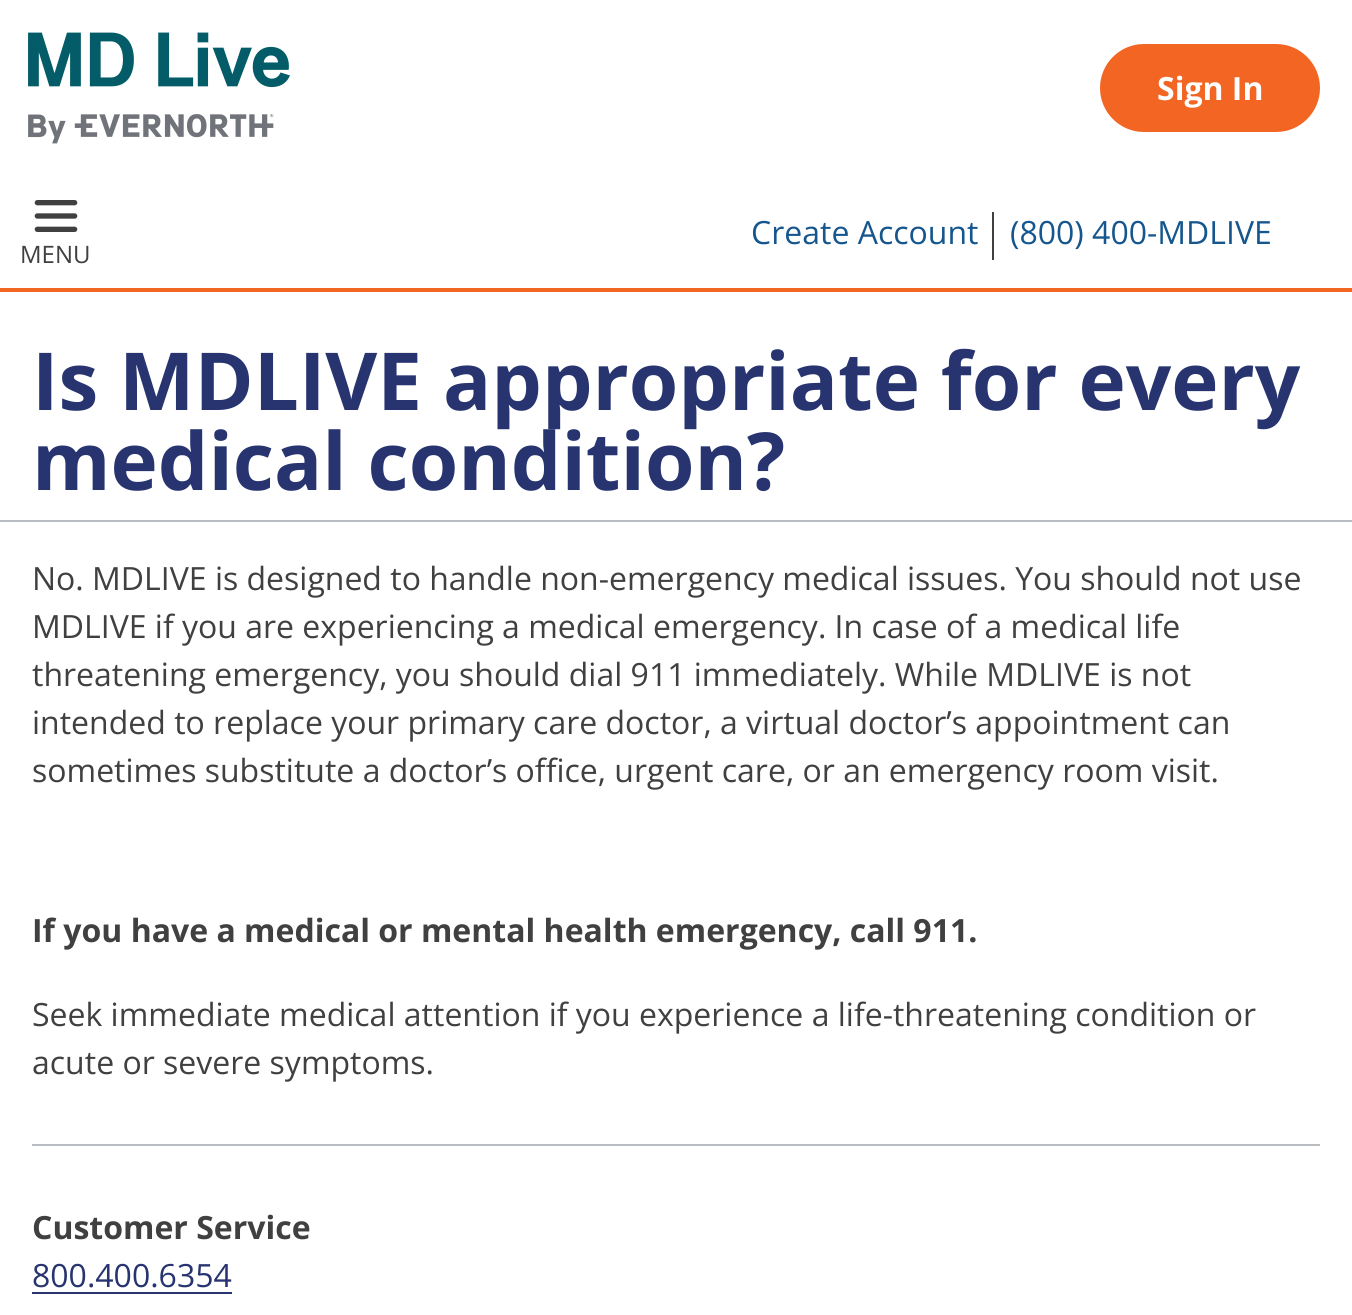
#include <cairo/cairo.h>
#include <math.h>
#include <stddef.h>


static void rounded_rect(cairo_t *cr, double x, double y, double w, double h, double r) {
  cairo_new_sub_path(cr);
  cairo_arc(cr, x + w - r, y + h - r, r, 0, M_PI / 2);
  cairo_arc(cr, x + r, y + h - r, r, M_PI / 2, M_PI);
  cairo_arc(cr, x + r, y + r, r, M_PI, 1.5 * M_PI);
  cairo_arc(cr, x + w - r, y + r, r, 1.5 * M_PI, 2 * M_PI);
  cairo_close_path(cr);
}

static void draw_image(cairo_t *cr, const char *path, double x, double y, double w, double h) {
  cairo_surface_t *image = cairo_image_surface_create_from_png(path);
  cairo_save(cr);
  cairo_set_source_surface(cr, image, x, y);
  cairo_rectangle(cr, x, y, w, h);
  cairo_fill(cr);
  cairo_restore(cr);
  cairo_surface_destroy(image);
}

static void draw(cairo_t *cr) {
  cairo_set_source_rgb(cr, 1, 1, 1);
  cairo_paint(cr);
  draw_image(cr, "images/1.png", 28, 32, 262, 112);
  cairo_set_source_rgb(cr, 242 / 255.0, 101 / 255.0, 34 / 255.0);
  rounded_rect(cr, 1102, 46, 216, 84, 42);
  cairo_fill_preserve(cr);
  cairo_set_line_width(cr, 4);
  cairo_stroke(cr);
  cairo_rectangle(cr, 0, 288, 1352, 4);
  cairo_fill(cr);
  cairo_set_source_rgb(cr, 64 / 255.0, 64 / 255.0, 64 / 255.0);
  cairo_rectangle(cr, 992, 212, 2, 48);
  cairo_fill(cr);
  draw_image(cr, "images/2.png", 34, 200, 44, 32);
  cairo_set_source_rgb(cr, 185 / 255.0, 188 / 255.0, 192 / 255.0);
  cairo_rectangle(cr, 0, 520, 1352, 2);
  cairo_fill(cr);
  cairo_rectangle(cr, 32, 1144, 1288, 2);
  cairo_fill(cr);
  cairo_set_source_rgb(cr, 39 / 255.0, 52 / 255.0, 112 / 255.0);
  cairo_rectangle(cr, 32, 1292, 200, 2);
  cairo_fill(cr);
  cairo_select_font_face(cr, "Open Sans", CAIRO_FONT_SLANT_NORMAL, CAIRO_FONT_WEIGHT_BOLD);
  cairo_set_font_size(cr, 32);
  cairo_set_source_rgb(cr, 1, 1, 1);
  cairo_move_to(cr, 1157, 100);
  cairo_show_text(cr, "Sign In");
  cairo_select_font_face(cr, "Open Sans", CAIRO_FONT_SLANT_NORMAL, CAIRO_FONT_WEIGHT_NORMAL);
  cairo_set_source_rgb(cr, 20 / 255.0, 86 / 255.0, 141 / 255.0);
  cairo_move_to(cr, 751, 244);
  cairo_show_text(cr, "Create Account");
  cairo_move_to(cr, 1010, 244);
  cairo_show_text(cr, "(800) 400-MDLIVE");
  cairo_set_font_size(cr, 24);
  cairo_set_source_rgb(cr, 64 / 255.0, 64 / 255.0, 64 / 255.0);
  cairo_move_to(cr, 20, 263);
  cairo_show_text(cr, "MENU");
  cairo_select_font_face(cr, "Open Sans", CAIRO_FONT_SLANT_NORMAL, CAIRO_FONT_WEIGHT_BOLD);
  cairo_set_font_size(cr, 80);
  cairo_set_source_rgb(cr, 39 / 255.0, 52 / 255.0, 112 / 255.0);
  cairo_move_to(cr, 32, 410);
  cairo_show_text(cr, "Is MDLIVE appropriate for every");
  cairo_move_to(cr, 32, 490);
  cairo_show_text(cr, "medical condition?");
  cairo_select_font_face(cr, "Open Sans", CAIRO_FONT_SLANT_NORMAL, CAIRO_FONT_WEIGHT_NORMAL);
  cairo_set_font_size(cr, 32);
  cairo_set_source_rgb(cr, 64 / 255.0, 64 / 255.0, 64 / 255.0);
  cairo_move_to(cr, 32, 590);
  cairo_show_text(cr, "No. MDLIVE is designed to handle non-emergency medical issues. You should not use");
  cairo_move_to(cr, 32, 638);
  cairo_show_text(cr, "MDLIVE if you are experiencing a medical emergency. In case of a medical life");
  cairo_move_to(cr, 32, 686);
  cairo_show_text(cr, "threatening emergency, you should dial 911 immediately. While MDLIVE is not");
  cairo_move_to(cr, 32, 734);
  cairo_show_text(cr, "intended to replace your primary care doctor, a virtual doctor’s appointment can");
  cairo_move_to(cr, 32, 782);
  cairo_show_text(cr, "sometimes substitute a doctor’s office, urgent care, or an emergency room visit.");
  cairo_select_font_face(cr, "Open Sans", CAIRO_FONT_SLANT_NORMAL, CAIRO_FONT_WEIGHT_BOLD);
  cairo_move_to(cr, 32, 942);
  cairo_show_text(cr, "If you have a medical or mental health emergency, call 911.");
  cairo_select_font_face(cr, "Open Sans", CAIRO_FONT_SLANT_NORMAL, CAIRO_FONT_WEIGHT_NORMAL);
  cairo_move_to(cr, 32, 1026);
  cairo_show_text(cr, "Seek immediate medical attention if you experience a life-threatening condition or");
  cairo_move_to(cr, 32, 1074);
  cairo_show_text(cr, "acute or severe symptoms.");
  cairo_select_font_face(cr, "Open Sans", CAIRO_FONT_SLANT_NORMAL, CAIRO_FONT_WEIGHT_BOLD);
  cairo_move_to(cr, 32, 1239);
  cairo_show_text(cr, "Customer Service");
  cairo_select_font_face(cr, "Open Sans", CAIRO_FONT_SLANT_NORMAL, CAIRO_FONT_WEIGHT_NORMAL);
  cairo_set_source_rgb(cr, 39 / 255.0, 52 / 255.0, 112 / 255.0);
  cairo_move_to(cr, 32, 1287);
  cairo_show_text(cr, "800.400.6354");
}

int main(void) {
  cairo_surface_t *surface = cairo_image_surface_create(CAIRO_FORMAT_RGB24, 1352, 1315);
  cairo_t *cr = cairo_create(surface);
  cairo_font_options_t *options = cairo_font_options_create();
  cairo_font_options_set_hint_metrics(options, CAIRO_HINT_METRICS_OFF);
  cairo_font_options_set_hint_style(options, CAIRO_HINT_STYLE_NONE);
  cairo_set_font_options(cr, options);
  cairo_set_miter_limit(cr, 4);
  draw(cr);
  cairo_surface_write_to_png(surface, "out.png");
  cairo_font_options_destroy(options);
  cairo_destroy(cr);
  cairo_surface_destroy(surface);
  return 0;
}
